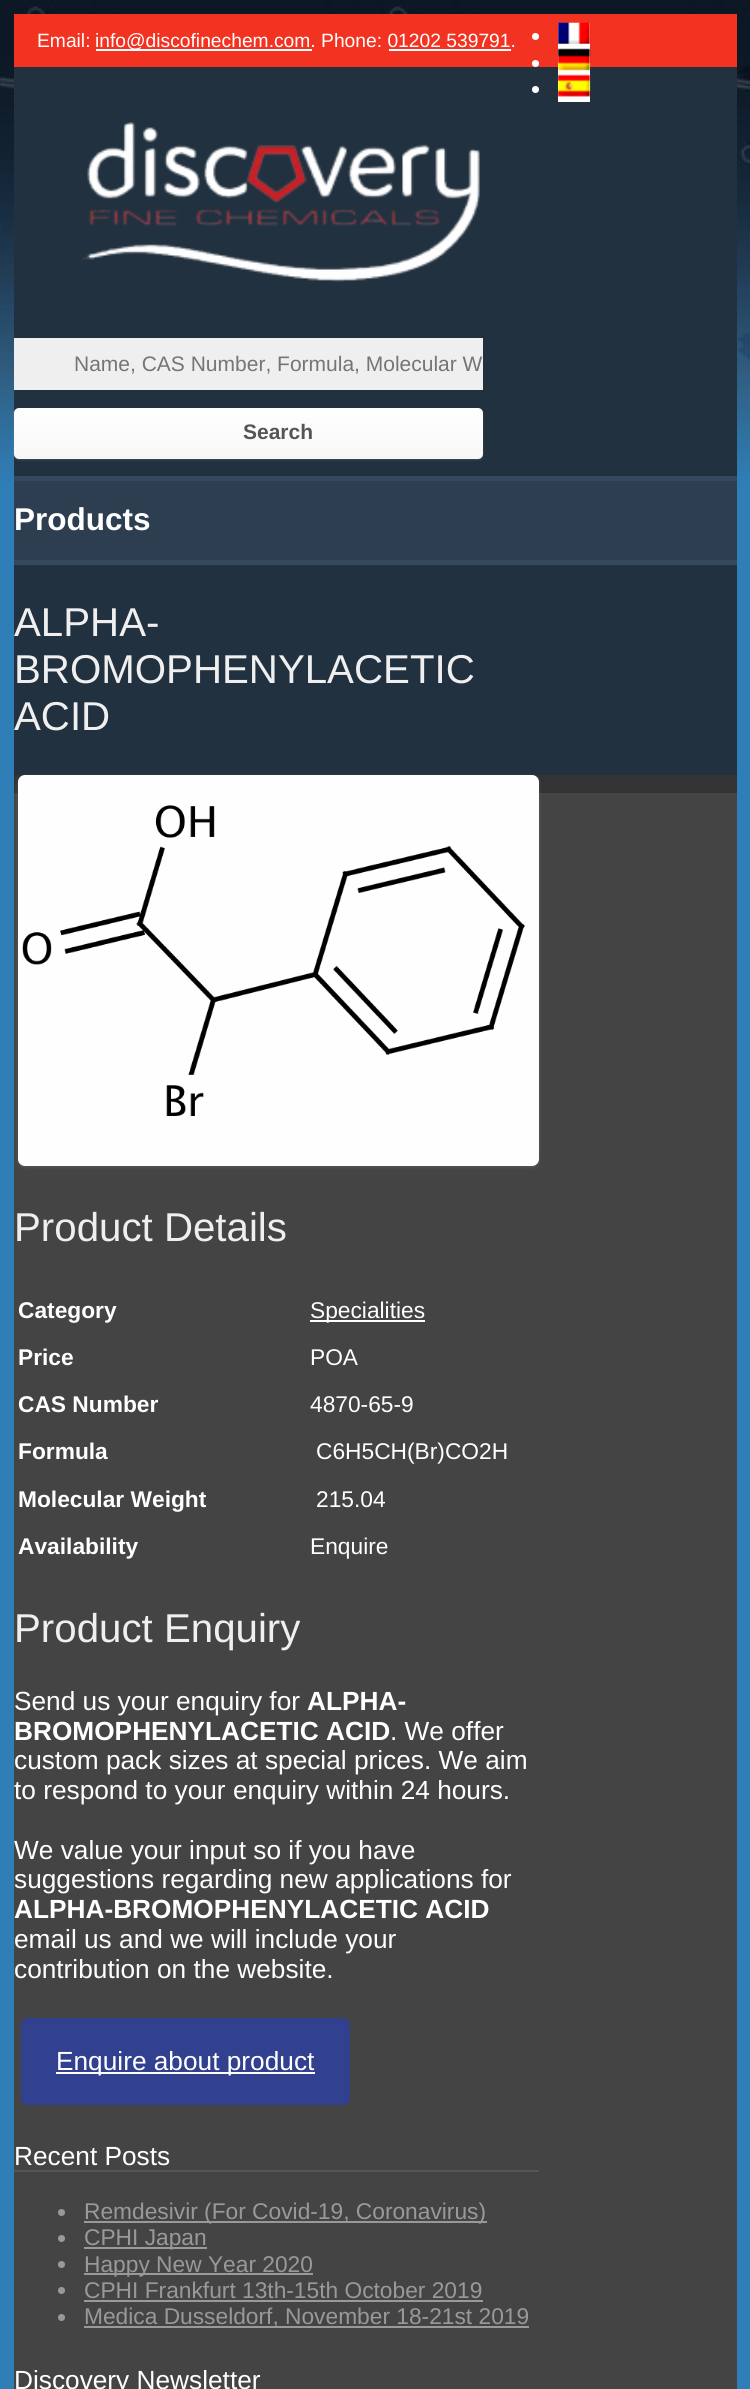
#include <cairo/cairo.h>
#include <math.h>
#include <stddef.h>


static void rounded_rect(cairo_t *cr, double x, double y, double w, double h, double r) {
  cairo_new_sub_path(cr);
  cairo_arc(cr, x + w - r, y + h - r, r, 0, M_PI / 2);
  cairo_arc(cr, x + r, y + h - r, r, M_PI / 2, M_PI);
  cairo_arc(cr, x + r, y + r, r, M_PI, 1.5 * M_PI);
  cairo_arc(cr, x + w - r, y + r, r, 1.5 * M_PI, 2 * M_PI);
  cairo_close_path(cr);
}

static void draw_shadow(cairo_t *cr, double x, double y, double w, double h, double r, double blur, double alpha) {
  cairo_push_group_with_content(cr, CAIRO_CONTENT_ALPHA);
  cairo_set_operator(cr, CAIRO_OPERATOR_SOURCE);
  for (int i = 15; i >= -15 && fmin(w, h) + blur * i / 3 > 0; i -= 2) {
    double e = blur * i / 6;
    cairo_set_source_rgba(cr, 0, 0, 0, alpha * erfc((i - 1) / 8.5) / 2);
    rounded_rect(cr, x - e, y - e, w + 2 * e, h + 2 * e, fmax(0, fmin(r + e + blur * .6, fmin(w, h) / 2 + e)));
    cairo_fill(cr);
  }
  cairo_pattern_t *soft = cairo_pop_group(cr);
  cairo_mask(cr, soft);
  cairo_pattern_destroy(soft);
}

static void draw_image(cairo_t *cr, const char *path, double x, double y, double w, double h) {
  cairo_surface_t *image = cairo_image_surface_create_from_png(path);
  cairo_save(cr);
  cairo_set_source_surface(cr, image, x, y);
  cairo_rectangle(cr, x, y, w, h);
  cairo_fill(cr);
  cairo_restore(cr);
  cairo_surface_destroy(image);
}

static void draw(cairo_t *cr) {
  cairo_pattern_t *gradient;
  cairo_set_source_rgb(cr, 48 / 255.0, 126 / 255.0, 184 / 255.0);
  cairo_paint(cr);
  draw_image(cr, "images/1.png", 0, 0, 750, 505);
  cairo_set_source_rgb(cr, 34 / 255.0, 49 / 255.0, 63 / 255.0);
  cairo_rectangle(cr, 14, 67, 723, 708);
  cairo_fill(cr);
  cairo_set_source_rgb(cr, 243 / 255.0, 51 / 255.0, 33 / 255.0);
  cairo_rectangle(cr, 14, 14, 723, 53);
  cairo_fill(cr);
  cairo_set_source_rgb(cr, 1, 1, 1);
  cairo_rectangle(cr, 96, 49, 216, 2);
  cairo_fill(cr);
  cairo_rectangle(cr, 389, 49, 122, 2);
  cairo_fill(cr);
  draw_image(cr, "images/2.png", 82, 122, 398, 160);
  cairo_set_source_rgb(cr, 239 / 255.0, 239 / 255.0, 239 / 255.0);
  cairo_rectangle(cr, 14, 338, 469, 52);
  cairo_fill(cr);
  cairo_set_source_rgb(cr, 180 / 255.0, 180 / 255.0, 180 / 255.0);
  draw_shadow(cr, 14, 410, 469, 50, 5, 1, 0.2);
  gradient = cairo_pattern_create_linear(249, 459, 249, 408);
  cairo_pattern_add_color_stop_rgba(gradient, 0, 247 / 255.0, 247 / 255.0, 247 / 255.0, 1);
  cairo_pattern_add_color_stop_rgba(gradient, 1, 1, 1, 1, 1);
  cairo_set_source(cr, gradient);
  cairo_pattern_destroy(gradient);
  rounded_rect(cr, 14, 408, 469, 51, 5);
  cairo_fill(cr);
  cairo_set_source_rgb(cr, 44 / 255.0, 62 / 255.0, 80 / 255.0);
  cairo_rectangle(cr, 14, 481, 723, 79);
  cairo_fill(cr);
  cairo_set_source_rgb(cr, 52 / 255.0, 73 / 255.0, 94 / 255.0);
  cairo_rectangle(cr, 14, 476, 723, 5);
  cairo_fill(cr);
  cairo_rectangle(cr, 14, 560, 723, 5);
  cairo_fill(cr);
  cairo_set_source_rgb(cr, 68 / 255.0, 68 / 255.0, 68 / 255.0);
  cairo_rectangle(cr, 14, 793, 723, 1596);
  cairo_fill(cr);
  cairo_set_source_rgb(cr, 51 / 255.0, 51 / 255.0, 51 / 255.0);
  cairo_rectangle(cr, 14, 775, 723, 18);
  cairo_fill(cr);
  cairo_set_source_rgb(cr, 180 / 255.0, 180 / 255.0, 180 / 255.0);
  draw_shadow(cr, 18, 777, 521, 390, 7, 2, 0.2);
  cairo_set_source_rgb(cr, 254 / 255.0, 254 / 255.0, 254 / 255.0);
  rounded_rect(cr, 18, 775, 521, 391, 7);
  cairo_fill(cr);
  draw_image(cr, "images/3.png", 22, 805, 503, 311);
  cairo_set_source_rgb(cr, 1, 1, 1);
  cairo_rectangle(cr, 310, 1320, 115, 2);
  cairo_fill(cr);
  cairo_set_source_rgb(cr, 49 / 255.0, 64 / 255.0, 143 / 255.0);
  rounded_rect(cr, 21, 2018, 329, 87, 7);
  cairo_fill(cr);
  cairo_set_source_rgb(cr, 1, 1, 1);
  cairo_rectangle(cr, 56, 2072, 259, 2);
  cairo_fill(cr);
  cairo_set_source_rgb(cr, 85 / 255.0, 85 / 255.0, 85 / 255.0);
  cairo_rectangle(cr, 14, 2170, 525, 2);
  cairo_fill(cr);
  cairo_set_source_rgb(cr, 153 / 255.0, 153 / 255.0, 153 / 255.0);
  cairo_arc(cr, 61.5, 2212.5, 3.5, 0, 2 * M_PI);
  cairo_fill(cr);
  cairo_rectangle(cr, 84, 2221, 403, 2);
  cairo_fill(cr);
  cairo_arc(cr, 61.5, 2238.5, 3.5, 0, 2 * M_PI);
  cairo_fill(cr);
  cairo_rectangle(cr, 84, 2247, 123, 2);
  cairo_fill(cr);
  cairo_arc(cr, 61.5, 2264.5, 3.5, 0, 2 * M_PI);
  cairo_fill(cr);
  cairo_rectangle(cr, 84, 2273, 229, 2);
  cairo_fill(cr);
  cairo_arc(cr, 61.5, 2290.5, 3.5, 0, 2 * M_PI);
  cairo_fill(cr);
  cairo_rectangle(cr, 84, 2300, 399, 2);
  cairo_fill(cr);
  cairo_arc(cr, 61.5, 2317.5, 3.5, 0, 2 * M_PI);
  cairo_fill(cr);
  cairo_rectangle(cr, 84, 2326, 445, 2);
  cairo_fill(cr);
  cairo_set_source_rgb(cr, 1, 1, 1);
  cairo_rectangle(cr, 558, 23, 32, 79);
  cairo_fill(cr);
  draw_image(cr, "images/4.png", 558, 22, 33, 22);
  cairo_arc(cr, 535.5, 36.5, 3.5, 0, 2 * M_PI);
  cairo_fill(cr);
  cairo_arc(cr, 535.5, 63.5, 3.5, 0, 2 * M_PI);
  cairo_fill(cr);
  draw_image(cr, "images/5.png", 558, 48, 33, 23);
  cairo_arc(cr, 535.5, 89.5, 3.5, 0, 2 * M_PI);
  cairo_fill(cr);
  draw_image(cr, "images/6.png", 558, 74, 33, 23);
  cairo_select_font_face(cr, "Liberation Sans", CAIRO_FONT_SLANT_NORMAL, CAIRO_FONT_WEIGHT_NORMAL);
  cairo_set_font_size(cr, 19.25);
  cairo_move_to(cr, 37, 47);
  cairo_show_text(cr, "Email:");
  cairo_move_to(cr, 95, 47);
  cairo_show_text(cr, "info@discofinechem.com. Phone: 01202 539791.");
  cairo_set_font_size(cr, 21);
  cairo_set_source_rgb(cr, 117 / 255.0, 117 / 255.0, 117 / 255.0);
  cairo_move_to(cr, 74, 371);
  cairo_show_text(cr, "Name, CAS Number, Formula, Molecular W");
  cairo_select_font_face(cr, "Liberation Sans", CAIRO_FONT_SLANT_NORMAL, CAIRO_FONT_WEIGHT_BOLD);
  cairo_set_source_rgb(cr, 85 / 255.0, 85 / 255.0, 85 / 255.0);
  cairo_move_to(cr, 243, 439);
  cairo_show_text(cr, "Search");
  cairo_set_font_size(cr, 31.5);
  cairo_set_source_rgb(cr, 1, 1, 1);
  cairo_move_to(cr, 14, 530);
  cairo_show_text(cr, "Products");
  cairo_select_font_face(cr, "Liberation Sans", CAIRO_FONT_SLANT_NORMAL, CAIRO_FONT_WEIGHT_NORMAL);
  cairo_set_font_size(cr, 40.25);
  cairo_set_source_rgb(cr, 239 / 255.0, 239 / 255.0, 239 / 255.0);
  cairo_move_to(cr, 14, 636);
  cairo_show_text(cr, "ALPHA-");
  cairo_move_to(cr, 14, 683);
  cairo_show_text(cr, "BROMOPHENYLACETIC");
  cairo_move_to(cr, 14, 730);
  cairo_show_text(cr, "ACID");
  cairo_move_to(cr, 14, 1241);
  cairo_show_text(cr, "Product Details");
  cairo_select_font_face(cr, "Liberation Sans", CAIRO_FONT_SLANT_NORMAL, CAIRO_FONT_WEIGHT_BOLD);
  cairo_set_font_size(cr, 22.75);
  cairo_set_source_rgb(cr, 1, 1, 1);
  cairo_move_to(cr, 18, 1318);
  cairo_show_text(cr, "Category");
  cairo_select_font_face(cr, "Liberation Sans", CAIRO_FONT_SLANT_NORMAL, CAIRO_FONT_WEIGHT_NORMAL);
  cairo_move_to(cr, 310, 1318);
  cairo_show_text(cr, "Specialities");
  cairo_select_font_face(cr, "Liberation Sans", CAIRO_FONT_SLANT_NORMAL, CAIRO_FONT_WEIGHT_BOLD);
  cairo_move_to(cr, 18, 1365);
  cairo_show_text(cr, "Price");
  cairo_select_font_face(cr, "Liberation Sans", CAIRO_FONT_SLANT_NORMAL, CAIRO_FONT_WEIGHT_NORMAL);
  cairo_move_to(cr, 310, 1365);
  cairo_show_text(cr, "POA");
  cairo_select_font_face(cr, "Liberation Sans", CAIRO_FONT_SLANT_NORMAL, CAIRO_FONT_WEIGHT_BOLD);
  cairo_move_to(cr, 18, 1412);
  cairo_show_text(cr, "CAS Number");
  cairo_select_font_face(cr, "Liberation Sans", CAIRO_FONT_SLANT_NORMAL, CAIRO_FONT_WEIGHT_NORMAL);
  cairo_move_to(cr, 310, 1412);
  cairo_show_text(cr, "4870-65-9");
  cairo_select_font_face(cr, "Liberation Sans", CAIRO_FONT_SLANT_NORMAL, CAIRO_FONT_WEIGHT_BOLD);
  cairo_move_to(cr, 18, 1459);
  cairo_show_text(cr, "Formula");
  cairo_select_font_face(cr, "Liberation Sans", CAIRO_FONT_SLANT_NORMAL, CAIRO_FONT_WEIGHT_NORMAL);
  cairo_move_to(cr, 316, 1459);
  cairo_show_text(cr, "C6H5CH(Br)CO2H");
  cairo_select_font_face(cr, "Liberation Sans", CAIRO_FONT_SLANT_NORMAL, CAIRO_FONT_WEIGHT_BOLD);
  cairo_move_to(cr, 18, 1507);
  cairo_show_text(cr, "Molecular Weight");
  cairo_select_font_face(cr, "Liberation Sans", CAIRO_FONT_SLANT_NORMAL, CAIRO_FONT_WEIGHT_NORMAL);
  cairo_move_to(cr, 316, 1507);
  cairo_show_text(cr, "215.04");
  cairo_select_font_face(cr, "Liberation Sans", CAIRO_FONT_SLANT_NORMAL, CAIRO_FONT_WEIGHT_BOLD);
  cairo_move_to(cr, 18, 1554);
  cairo_show_text(cr, "Availability");
  cairo_select_font_face(cr, "Liberation Sans", CAIRO_FONT_SLANT_NORMAL, CAIRO_FONT_WEIGHT_NORMAL);
  cairo_move_to(cr, 310, 1554);
  cairo_show_text(cr, "Enquire");
  cairo_set_font_size(cr, 40.25);
  cairo_set_source_rgb(cr, 239 / 255.0, 239 / 255.0, 239 / 255.0);
  cairo_move_to(cr, 14, 1642);
  cairo_show_text(cr, "Product Enquiry");
  cairo_set_font_size(cr, 26.25);
  cairo_set_source_rgb(cr, 1, 1, 1);
  cairo_move_to(cr, 14, 1710);
  cairo_show_text(cr, "Send us your enquiry for");
  cairo_select_font_face(cr, "Liberation Sans", CAIRO_FONT_SLANT_NORMAL, CAIRO_FONT_WEIGHT_BOLD);
  cairo_move_to(cr, 307, 1710);
  cairo_show_text(cr, "ALPHA-");
  cairo_move_to(cr, 14, 1740);
  cairo_show_text(cr, "BROMOPHENYLACETIC ACID");
  cairo_select_font_face(cr, "Liberation Sans", CAIRO_FONT_SLANT_NORMAL, CAIRO_FONT_WEIGHT_NORMAL);
  cairo_move_to(cr, 390, 1740);
  cairo_show_text(cr, ". We offer");
  cairo_move_to(cr, 14, 1769);
  cairo_show_text(cr, "custom pack sizes at special prices. We aim");
  cairo_move_to(cr, 14, 1799);
  cairo_show_text(cr, "to respond to your enquiry within 24 hours.");
  cairo_move_to(cr, 14, 1859);
  cairo_show_text(cr, "We value your input so if you have");
  cairo_move_to(cr, 14, 1888);
  cairo_show_text(cr, "suggestions regarding new applications for");
  cairo_select_font_face(cr, "Liberation Sans", CAIRO_FONT_SLANT_NORMAL, CAIRO_FONT_WEIGHT_BOLD);
  cairo_move_to(cr, 14, 1918);
  cairo_show_text(cr, "ALPHA-BROMOPHENYLACETIC ACID");
  cairo_select_font_face(cr, "Liberation Sans", CAIRO_FONT_SLANT_NORMAL, CAIRO_FONT_WEIGHT_NORMAL);
  cairo_move_to(cr, 14, 1948);
  cairo_show_text(cr, "email us and we will include your");
  cairo_move_to(cr, 14, 1978);
  cairo_show_text(cr, "contribution on the website.");
  cairo_move_to(cr, 56, 2070);
  cairo_show_text(cr, "Enquire about product");
  cairo_move_to(cr, 14, 2165);
  cairo_show_text(cr, "Recent Posts");
  cairo_set_font_size(cr, 22.75);
  cairo_set_source_rgb(cr, 153 / 255.0, 153 / 255.0, 153 / 255.0);
  cairo_move_to(cr, 84, 2219);
  cairo_show_text(cr, "Remdesivir (For Covid-19, Coronavirus)");
  cairo_move_to(cr, 84, 2245);
  cairo_show_text(cr, "CPHI Japan");
  cairo_move_to(cr, 84, 2272);
  cairo_show_text(cr, "Happy New Year 2020");
  cairo_move_to(cr, 84, 2298);
  cairo_show_text(cr, "CPHI Frankfurt 13th-15th October 2019");
  cairo_move_to(cr, 84, 2324);
  cairo_show_text(cr, "Medica Dusseldorf, November 18-21st 2019");
  cairo_set_font_size(cr, 26.25);
  cairo_set_source_rgb(cr, 1, 1, 1);
  cairo_move_to(cr, 14, 2389);
  cairo_show_text(cr, "Discovery Newsletter");
}

int main(void) {
  cairo_surface_t *surface = cairo_image_surface_create(CAIRO_FORMAT_RGB24, 750, 2389);
  cairo_t *cr = cairo_create(surface);
  cairo_font_options_t *options = cairo_font_options_create();
  cairo_font_options_set_hint_metrics(options, CAIRO_HINT_METRICS_OFF);
  cairo_font_options_set_hint_style(options, CAIRO_HINT_STYLE_NONE);
  cairo_set_font_options(cr, options);
  cairo_set_miter_limit(cr, 4);
  draw(cr);
  cairo_surface_write_to_png(surface, "out.png");
  cairo_font_options_destroy(options);
  cairo_destroy(cr);
  cairo_surface_destroy(surface);
  return 0;
}
